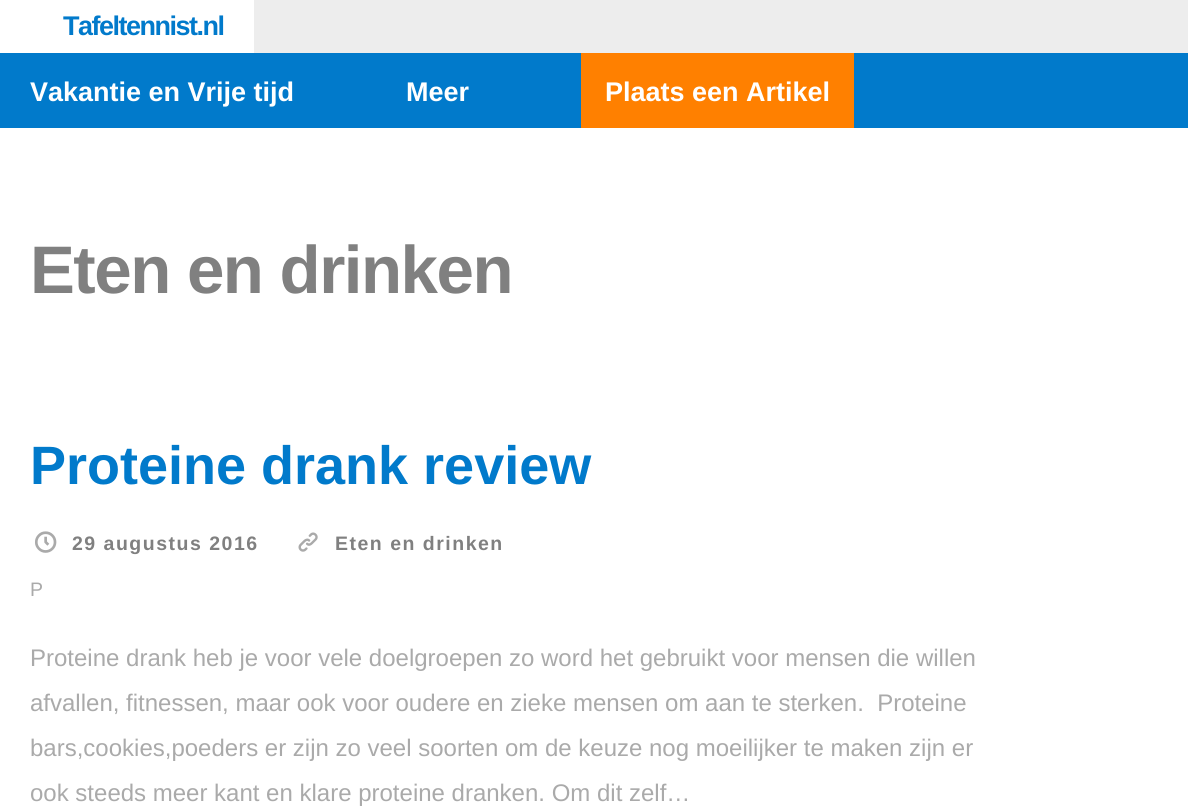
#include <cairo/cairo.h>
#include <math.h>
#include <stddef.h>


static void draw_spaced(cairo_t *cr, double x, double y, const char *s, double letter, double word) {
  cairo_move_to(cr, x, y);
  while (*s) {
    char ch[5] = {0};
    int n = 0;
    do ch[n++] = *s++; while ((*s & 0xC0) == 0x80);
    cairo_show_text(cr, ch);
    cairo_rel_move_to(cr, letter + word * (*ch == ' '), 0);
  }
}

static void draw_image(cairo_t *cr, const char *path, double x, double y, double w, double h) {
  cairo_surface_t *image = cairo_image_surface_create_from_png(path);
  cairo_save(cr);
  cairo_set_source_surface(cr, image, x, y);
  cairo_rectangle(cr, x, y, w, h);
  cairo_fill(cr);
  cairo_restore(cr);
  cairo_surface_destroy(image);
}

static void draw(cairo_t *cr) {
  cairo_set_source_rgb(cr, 1, 1, 1);
  cairo_paint(cr);
  cairo_set_source_rgb(cr, 1 / 255.0, 122 / 255.0, 203 / 255.0);
  cairo_rectangle(cr, 0, 53, 1188, 75);
  cairo_fill(cr);
  cairo_set_source_rgb(cr, 237 / 255.0, 237 / 255.0, 237 / 255.0);
  cairo_rectangle(cr, 254, 0, 934, 53);
  cairo_fill(cr);
  cairo_set_source_rgb(cr, 1, 128 / 255.0, 0);
  cairo_rectangle(cr, 581, 53, 273, 75);
  cairo_fill(cr);
  draw_image(cr, "images/1.png", 35, 531, 22, 22);
  draw_image(cr, "images/2.png", 298, 532, 20, 20);
  cairo_select_font_face(cr, "Liberation Sans", CAIRO_FONT_SLANT_NORMAL, CAIRO_FONT_WEIGHT_BOLD);
  cairo_set_font_size(cr, 27);
  cairo_set_source_rgb(cr, 1 / 255.0, 122 / 255.0, 203 / 255.0);
  draw_spaced(cr, 63, 35, "Tafeltennist.nl", -1.5, 0);
  cairo_set_source_rgb(cr, 1, 1, 1);
  cairo_move_to(cr, 30, 101);
  cairo_show_text(cr, "Vakantie en Vrije tijd");
  cairo_move_to(cr, 406, 101);
  cairo_show_text(cr, "Meer");
  cairo_move_to(cr, 605, 101);
  cairo_show_text(cr, "Plaats een Artikel");
  cairo_set_font_size(cr, 67.25);
  cairo_set_source_rgb(cr, 128 / 255.0, 128 / 255.0, 128 / 255.0);
  draw_spaced(cr, 30, 293, "Eten en drinken", -1.5, 0);
  cairo_set_font_size(cr, 54);
  cairo_set_source_rgb(cr, 1 / 255.0, 122 / 255.0, 203 / 255.0);
  cairo_move_to(cr, 30, 484);
  cairo_show_text(cr, "Proteine drank review");
  cairo_set_font_size(cr, 19.5);
  cairo_set_source_rgb(cr, 128 / 255.0, 128 / 255.0, 128 / 255.0);
  draw_spaced(cr, 72, 550, "29 augustus 2016", 1.5, 0);
  draw_spaced(cr, 335, 550, "Eten en drinken", 1.5, 0);
  cairo_select_font_face(cr, "Liberation Sans", CAIRO_FONT_SLANT_NORMAL, CAIRO_FONT_WEIGHT_NORMAL);
  cairo_set_source_rgb(cr, 170 / 255.0, 170 / 255.0, 170 / 255.0);
  draw_spaced(cr, 30, 596, "P", 1.5, 0);
  cairo_set_font_size(cr, 24);
  cairo_move_to(cr, 30, 666);
  cairo_show_text(cr, "Proteine drank heb je voor vele doelgroepen zo word het gebruikt voor mensen die willen");
  cairo_move_to(cr, 30, 711);
  cairo_show_text(cr, "afvallen, fitnessen, maar ook voor oudere en zieke mensen om aan te sterken.  Proteine");
  cairo_move_to(cr, 30, 756);
  cairo_show_text(cr, "bars,cookies,poeders er zijn zo veel soorten om de keuze nog moeilijker te maken zijn er");
  cairo_move_to(cr, 30, 801);
  cairo_show_text(cr, "ook steeds meer kant en klare proteine dranken. Om dit zelf…");
}

int main(void) {
  cairo_surface_t *surface = cairo_image_surface_create(CAIRO_FORMAT_RGB24, 1188, 811);
  cairo_t *cr = cairo_create(surface);
  cairo_font_options_t *options = cairo_font_options_create();
  cairo_font_options_set_hint_metrics(options, CAIRO_HINT_METRICS_OFF);
  cairo_font_options_set_hint_style(options, CAIRO_HINT_STYLE_NONE);
  cairo_set_font_options(cr, options);
  cairo_set_miter_limit(cr, 4);
  draw(cr);
  cairo_surface_write_to_png(surface, "out.png");
  cairo_font_options_destroy(options);
  cairo_destroy(cr);
  cairo_surface_destroy(surface);
  return 0;
}
